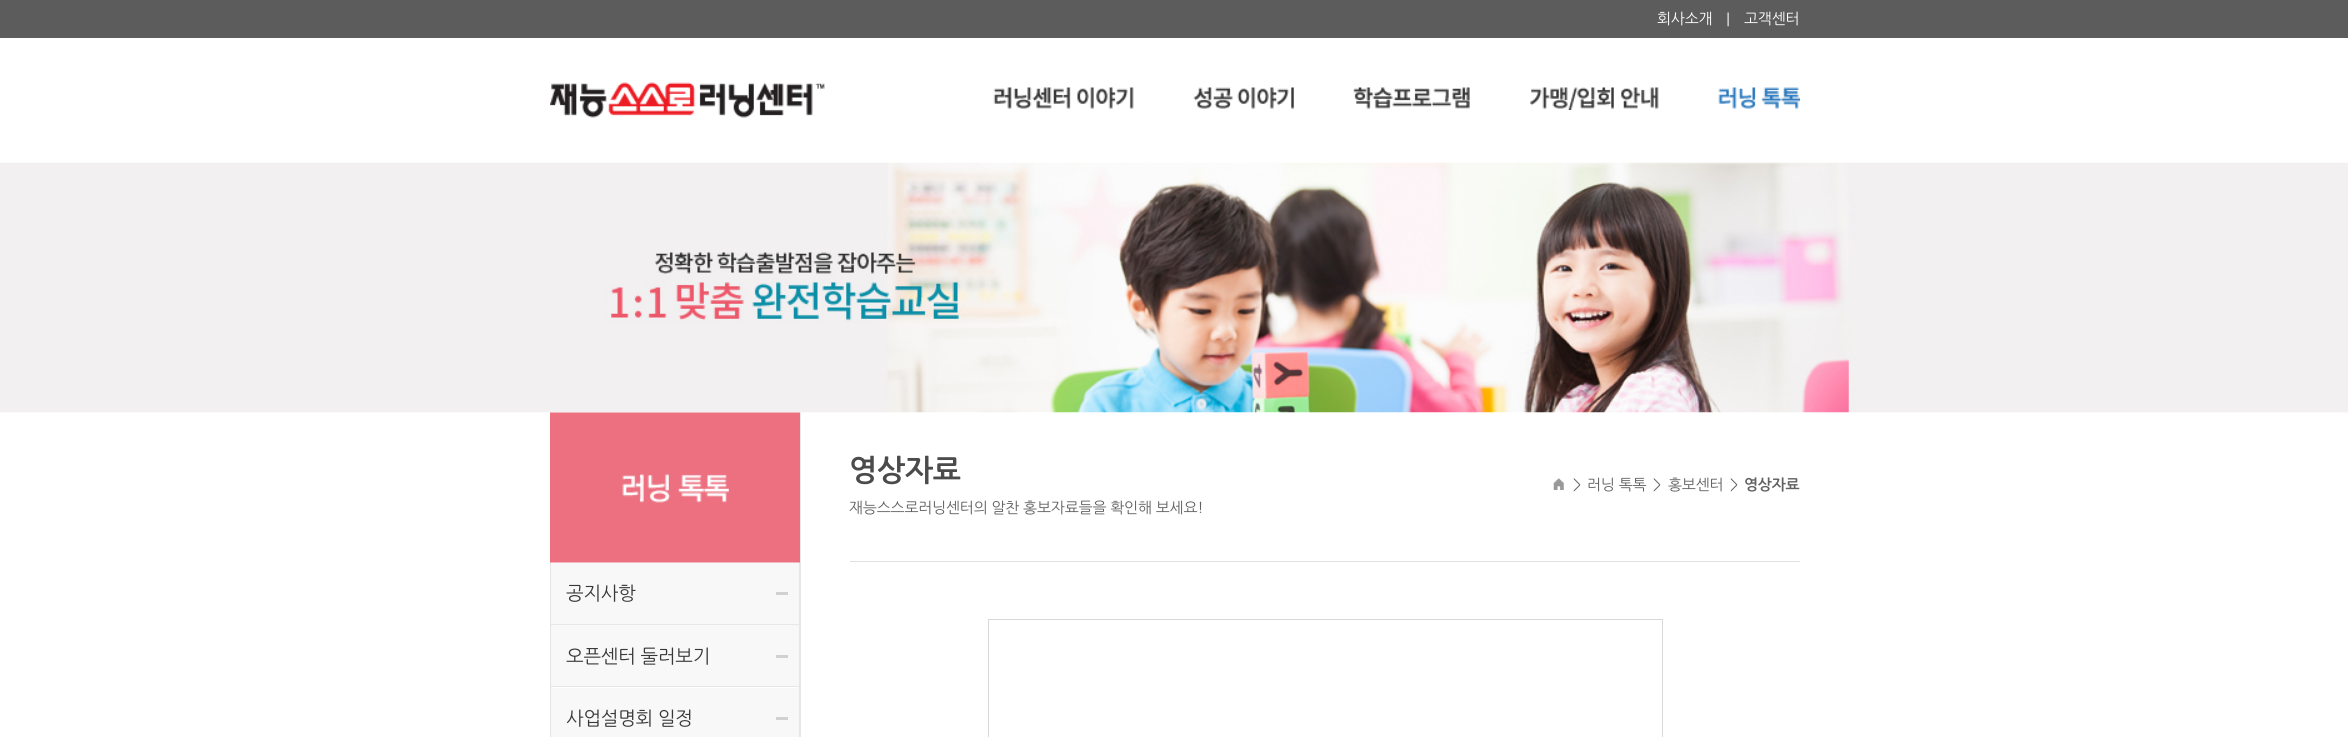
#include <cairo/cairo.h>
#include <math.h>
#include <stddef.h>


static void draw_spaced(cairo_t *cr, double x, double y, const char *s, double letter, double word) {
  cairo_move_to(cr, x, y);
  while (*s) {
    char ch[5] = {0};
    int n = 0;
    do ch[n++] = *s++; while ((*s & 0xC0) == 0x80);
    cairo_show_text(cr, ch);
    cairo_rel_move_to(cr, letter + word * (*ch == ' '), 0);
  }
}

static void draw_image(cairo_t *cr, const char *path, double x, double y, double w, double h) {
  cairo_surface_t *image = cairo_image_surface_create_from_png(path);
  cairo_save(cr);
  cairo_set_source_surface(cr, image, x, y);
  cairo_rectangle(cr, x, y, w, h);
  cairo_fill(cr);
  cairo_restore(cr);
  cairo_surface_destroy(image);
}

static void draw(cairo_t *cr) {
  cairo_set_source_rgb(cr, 1, 1, 1);
  cairo_paint(cr);
  cairo_set_source_rgb(cr, 92 / 255.0, 92 / 255.0, 92 / 255.0);
  cairo_rectangle(cr, 0, 0, 2348, 38);
  cairo_fill(cr);
  draw_image(cr, "images/1.png", 1727, 12, 2, 15);
  draw_image(cr, "images/2.png", 550, 82, 275, 36);
  draw_image(cr, "images/3.png", 993, 87, 141, 22);
  draw_image(cr, "images/4.png", 1193, 87, 101, 22);
  draw_image(cr, "images/5.png", 1353, 87, 117, 22);
  draw_image(cr, "images/6.png", 1530, 87, 129, 23);
  draw_image(cr, "images/7.png", 1718, 87, 82, 22);
  draw_image(cr, "images/9.png", 550, 412, 251, 325);
  draw_image(cr, "images/8.png", 0, 162, 2348, 251);
  cairo_set_source_rgb(cr, 224 / 255.0, 224 / 255.0, 224 / 255.0);
  cairo_rectangle(cr, 850, 561, 950, 1);
  cairo_fill(cr);
  draw_image(cr, "images/10.png", 1553, 478, 11, 12);
  cairo_rectangle(cr, 988.5, 619.5, 674, 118);
  cairo_set_source_rgb(cr, 216 / 255.0, 216 / 255.0, 216 / 255.0);
  cairo_set_line_width(cr, 1);
  cairo_stroke(cr);
  draw_image(cr, "images/11.png", 550, 412, 250, 151);
  cairo_set_source_rgb(cr, 231 / 255.0, 231 / 255.0, 231 / 255.0);
  cairo_rectangle(cr, 551, 624, 248, 1);
  cairo_fill(cr);
  cairo_set_source_rgb(cr, 248 / 255.0, 248 / 255.0, 248 / 255.0);
  cairo_rectangle(cr, 552, 563, 246, 61);
  cairo_fill(cr);
  cairo_set_source_rgb(cr, 210 / 255.0, 209 / 255.0, 209 / 255.0);
  cairo_rectangle(cr, 776, 592, 12, 3);
  cairo_fill(cr);
  cairo_set_source_rgb(cr, 231 / 255.0, 231 / 255.0, 231 / 255.0);
  cairo_rectangle(cr, 551, 686, 248, 1);
  cairo_fill(cr);
  cairo_set_source_rgb(cr, 248 / 255.0, 248 / 255.0, 248 / 255.0);
  cairo_rectangle(cr, 552, 625, 246, 61);
  cairo_fill(cr);
  cairo_set_source_rgb(cr, 210 / 255.0, 209 / 255.0, 209 / 255.0);
  cairo_rectangle(cr, 776, 655, 12, 3);
  cairo_fill(cr);
  cairo_set_source_rgb(cr, 248 / 255.0, 248 / 255.0, 248 / 255.0);
  cairo_rectangle(cr, 552, 688, 246, 49);
  cairo_fill(cr);
  cairo_set_source_rgb(cr, 210 / 255.0, 209 / 255.0, 209 / 255.0);
  cairo_rectangle(cr, 776, 717, 12, 3);
  cairo_fill(cr);
  cairo_select_font_face(cr, "NanumGothic", CAIRO_FONT_SLANT_NORMAL, CAIRO_FONT_WEIGHT_NORMAL);
  cairo_set_font_size(cr, 15);
  cairo_set_source_rgb(cr, 1, 1, 1);
  draw_spaced(cr, 1657, 24, "회사소개", -0.25, 0);
  draw_spaced(cr, 1744, 24, "고객센터", -0.25, 0);
  cairo_select_font_face(cr, "NanumGothic", CAIRO_FONT_SLANT_NORMAL, CAIRO_FONT_WEIGHT_BOLD);
  cairo_set_font_size(cr, 30);
  cairo_set_source_rgb(cr, 75 / 255.0, 75 / 255.0, 75 / 255.0);
  draw_spaced(cr, 849, 481, "영상자료", -0.25, 0);
  cairo_select_font_face(cr, "NanumGothic", CAIRO_FONT_SLANT_NORMAL, CAIRO_FONT_WEIGHT_NORMAL);
  cairo_set_font_size(cr, 15);
  cairo_set_source_rgb(cr, 97 / 255.0, 97 / 255.0, 97 / 255.0);
  draw_spaced(cr, 1573, 490, ">", -0.25, 0);
  draw_spaced(cr, 1587, 490, "러닝 톡톡", -0.25, 0);
  draw_spaced(cr, 1653, 490, ">", -0.25, 0);
  draw_spaced(cr, 1668, 490, "홍보센터", -0.25, 0);
  draw_spaced(cr, 1730, 490, ">", -0.25, 0);
  cairo_select_font_face(cr, "NanumGothic", CAIRO_FONT_SLANT_NORMAL, CAIRO_FONT_WEIGHT_BOLD);
  draw_spaced(cr, 1744, 490, "영상자료", -0.25, 0);
  cairo_select_font_face(cr, "NanumGothic", CAIRO_FONT_SLANT_NORMAL, CAIRO_FONT_WEIGHT_NORMAL);
  draw_spaced(cr, 849, 513, "재능스스로러닝센터의 알찬 홍보자료들을 확인해 보세요!", -0.25, 0);
  cairo_set_font_size(cr, 18.75);
  cairo_set_source_rgb(cr, 56 / 255.0, 56 / 255.0, 56 / 255.0);
  draw_spaced(cr, 566, 600, "공지사항", -0.25, 0);
  draw_spaced(cr, 566, 663, "오픈센터 둘러보기", -0.25, 0);
  draw_spaced(cr, 566, 725, "사업설명회 일정", -0.25, 0);
}

int main(void) {
  cairo_surface_t *surface = cairo_image_surface_create(CAIRO_FORMAT_RGB24, 2348, 737);
  cairo_t *cr = cairo_create(surface);
  cairo_font_options_t *options = cairo_font_options_create();
  cairo_font_options_set_hint_metrics(options, CAIRO_HINT_METRICS_OFF);
  cairo_font_options_set_hint_style(options, CAIRO_HINT_STYLE_NONE);
  cairo_set_font_options(cr, options);
  cairo_set_miter_limit(cr, 4);
  draw(cr);
  cairo_surface_write_to_png(surface, "out.png");
  cairo_font_options_destroy(options);
  cairo_destroy(cr);
  cairo_surface_destroy(surface);
  return 0;
}
